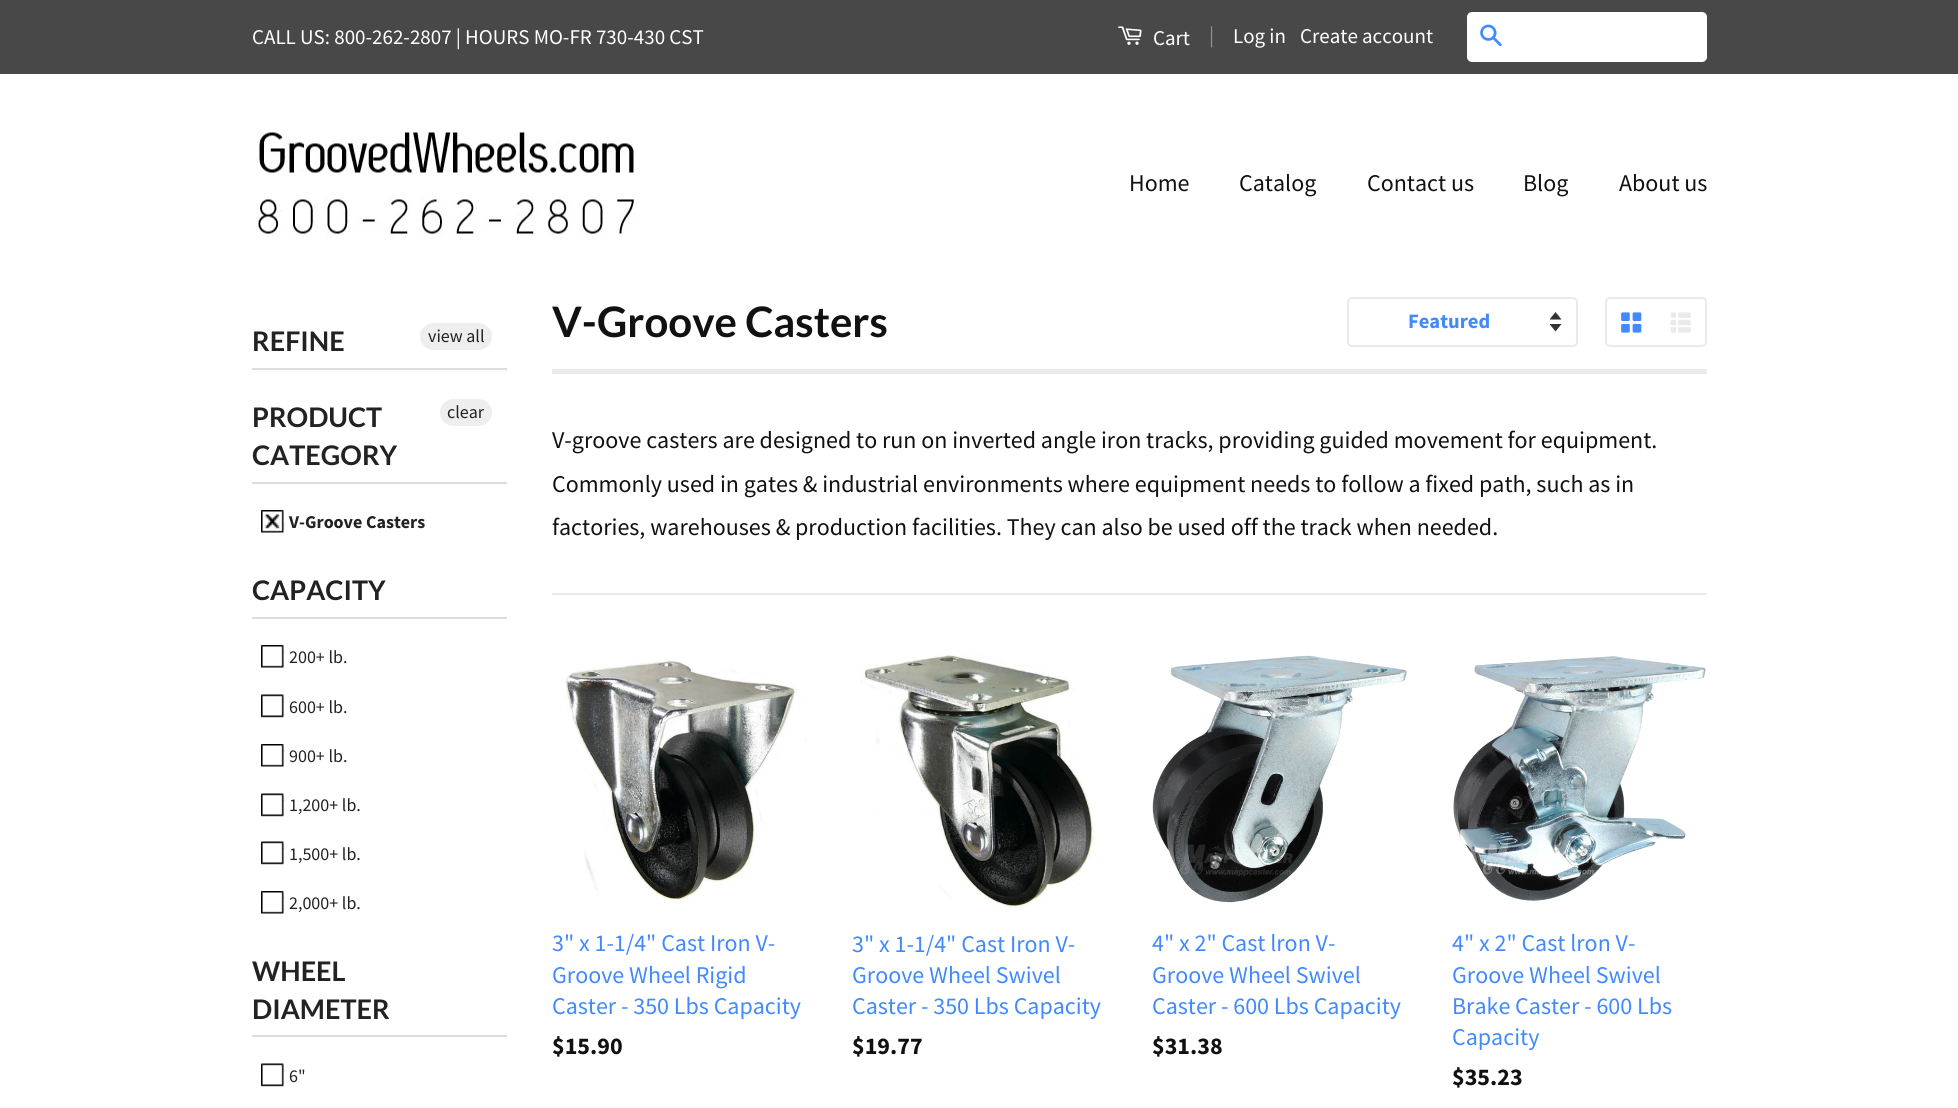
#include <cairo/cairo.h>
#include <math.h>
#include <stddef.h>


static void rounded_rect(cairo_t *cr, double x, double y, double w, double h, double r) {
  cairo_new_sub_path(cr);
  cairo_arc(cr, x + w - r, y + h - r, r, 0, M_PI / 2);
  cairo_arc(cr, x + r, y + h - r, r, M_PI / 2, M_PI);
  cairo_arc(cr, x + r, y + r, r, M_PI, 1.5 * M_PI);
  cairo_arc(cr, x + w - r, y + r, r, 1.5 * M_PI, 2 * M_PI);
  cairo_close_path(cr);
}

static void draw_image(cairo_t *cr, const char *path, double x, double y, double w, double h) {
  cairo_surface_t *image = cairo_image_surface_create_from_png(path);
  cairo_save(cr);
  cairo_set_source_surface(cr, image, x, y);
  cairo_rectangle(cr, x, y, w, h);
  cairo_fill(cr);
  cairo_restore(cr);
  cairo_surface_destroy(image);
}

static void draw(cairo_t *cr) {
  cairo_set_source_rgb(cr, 1, 1, 1);
  cairo_paint(cr);
  cairo_set_source_rgb(cr, 72 / 255.0, 72 / 255.0, 72 / 255.0);
  cairo_rectangle(cr, 0, 0, 1958, 74);
  cairo_fill(cr);
  draw_image(cr, "images/1.png", 1118, 26, 24, 19);
  cairo_set_source_rgb(cr, 1, 1, 1);
  rounded_rect(cr, 1467, 12, 240, 50, 5);
  cairo_fill(cr);
  draw_image(cr, "images/2.png", 1480, 24, 22, 23);
  draw_image(cr, "images/3.png", 256, 132, 380, 105);
  cairo_set_source_rgb(cr, 221 / 255.0, 221 / 255.0, 221 / 255.0);
  cairo_rectangle(cr, 252, 368, 255, 2);
  cairo_fill(cr);
  cairo_set_source_rgb(cr, 238 / 255.0, 238 / 255.0, 238 / 255.0);
  rounded_rect(cr, 420, 323, 72, 27, 13.5);
  cairo_fill(cr);
  cairo_set_source_rgb(cr, 221 / 255.0, 221 / 255.0, 221 / 255.0);
  cairo_rectangle(cr, 252, 482, 255, 2);
  cairo_fill(cr);
  cairo_set_source_rgb(cr, 238 / 255.0, 238 / 255.0, 238 / 255.0);
  rounded_rect(cr, 440, 399, 52, 27, 13.5);
  cairo_fill(cr);
  draw_image(cr, "images/4.png", 261, 510, 24, 23);
  cairo_set_source_rgb(cr, 221 / 255.0, 221 / 255.0, 221 / 255.0);
  cairo_rectangle(cr, 252, 617, 255, 2);
  cairo_fill(cr);
  draw_image(cr, "images/5.png", 261, 645, 24, 23);
  draw_image(cr, "images/6.png", 261, 694, 24, 24);
  draw_image(cr, "images/5.png", 261, 744, 24, 23);
  draw_image(cr, "images/6.png", 261, 793, 24, 24);
  draw_image(cr, "images/6.png", 261, 841, 24, 24);
  draw_image(cr, "images/5.png", 261, 891, 24, 23);
  cairo_rectangle(cr, 252, 1035, 255, 2);
  cairo_fill(cr);
  draw_image(cr, "images/6.png", 261, 1063, 24, 24);
  cairo_set_source_rgb(cr, 234 / 255.0, 234 / 255.0, 234 / 255.0);
  cairo_rectangle(cr, 552, 369, 1155, 5);
  cairo_fill(cr);
  draw_image(cr, "images/7.png", 1550, 312, 12, 20);
  rounded_rect(cr, 1348, 298, 229, 48, 4);
  cairo_stroke(cr);
  rounded_rect(cr, 1606, 298, 100, 48, 4);
  cairo_stroke(cr);
  draw_image(cr, "images/8.png", 1621, 312, 21, 21);
  draw_image(cr, "images/9.png", 1670, 312, 21, 21);
  cairo_rectangle(cr, 552, 593, 1155, 2);
  cairo_fill(cr);
  draw_image(cr, "images/10.png", 565, 659, 242, 244);
  draw_image(cr, "images/11.png", 860, 650, 238, 258);
  draw_image(cr, "images/12.png", 1152, 655, 255, 248);
  draw_image(cr, "images/13.png", 1453, 656, 253, 245);
  cairo_select_font_face(cr, "Source Sans Pro", CAIRO_FONT_SLANT_NORMAL, CAIRO_FONT_WEIGHT_NORMAL);
  cairo_set_font_size(cr, 21);
  cairo_set_source_rgb(cr, 1, 1, 1);
  cairo_move_to(cr, 252, 44);
  cairo_show_text(cr, "CALL US: 800-262-2807 | HOURS MO-FR 730-430 CST");
  cairo_move_to(cr, 1153, 45);
  cairo_show_text(cr, "Cart");
  cairo_set_source_rgb(cr, 145 / 255.0, 145 / 255.0, 145 / 255.0);
  cairo_move_to(cr, 1209, 42);
  cairo_show_text(cr, "|");
  cairo_set_source_rgb(cr, 1, 1, 1);
  cairo_move_to(cr, 1233, 43);
  cairo_show_text(cr, "Log in");
  cairo_move_to(cr, 1300, 43);
  cairo_show_text(cr, "Create account");
  cairo_set_font_size(cr, 24);
  cairo_set_source_rgb(cr, 17 / 255.0, 17 / 255.0, 17 / 255.0);
  cairo_move_to(cr, 1129, 191);
  cairo_show_text(cr, "Home");
  cairo_move_to(cr, 1239, 191);
  cairo_show_text(cr, "Catalog");
  cairo_move_to(cr, 1367, 191);
  cairo_show_text(cr, "Contact us");
  cairo_move_to(cr, 1523, 191);
  cairo_show_text(cr, "Blog");
  cairo_move_to(cr, 1619, 191);
  cairo_show_text(cr, "About us");
  cairo_select_font_face(cr, "Lato", CAIRO_FONT_SLANT_NORMAL, CAIRO_FONT_WEIGHT_BOLD);
  cairo_set_font_size(cr, 27);
  cairo_set_source_rgb(cr, 34 / 255.0, 34 / 255.0, 34 / 255.0);
  cairo_move_to(cr, 252, 351);
  cairo_show_text(cr, "REFINE");
  cairo_select_font_face(cr, "Source Sans Pro", CAIRO_FONT_SLANT_NORMAL, CAIRO_FONT_WEIGHT_NORMAL);
  cairo_set_font_size(cr, 18);
  cairo_move_to(cr, 428, 342);
  cairo_show_text(cr, "view all");
  cairo_select_font_face(cr, "Lato", CAIRO_FONT_SLANT_NORMAL, CAIRO_FONT_WEIGHT_BOLD);
  cairo_set_font_size(cr, 27);
  cairo_move_to(cr, 252, 427);
  cairo_show_text(cr, "PRODUCT");
  cairo_move_to(cr, 252, 465);
  cairo_show_text(cr, "CATEGORY");
  cairo_select_font_face(cr, "Source Sans Pro", CAIRO_FONT_SLANT_NORMAL, CAIRO_FONT_WEIGHT_NORMAL);
  cairo_set_font_size(cr, 18);
  cairo_move_to(cr, 447, 418);
  cairo_show_text(cr, "clear");
  cairo_select_font_face(cr, "Source Sans Pro", CAIRO_FONT_SLANT_NORMAL, CAIRO_FONT_WEIGHT_BOLD);
  cairo_move_to(cr, 289, 528);
  cairo_show_text(cr, "V-Groove Casters");
  cairo_select_font_face(cr, "Lato", CAIRO_FONT_SLANT_NORMAL, CAIRO_FONT_WEIGHT_BOLD);
  cairo_set_font_size(cr, 27);
  cairo_move_to(cr, 252, 600);
  cairo_show_text(cr, "CAPACITY");
  cairo_select_font_face(cr, "Source Sans Pro", CAIRO_FONT_SLANT_NORMAL, CAIRO_FONT_WEIGHT_NORMAL);
  cairo_set_font_size(cr, 18);
  cairo_move_to(cr, 289, 663);
  cairo_show_text(cr, "200+ lb.");
  cairo_move_to(cr, 289, 713);
  cairo_show_text(cr, "600+ lb.");
  cairo_move_to(cr, 289, 762);
  cairo_show_text(cr, "900+ lb.");
  cairo_move_to(cr, 289, 811);
  cairo_show_text(cr, "1,200+ lb.");
  cairo_move_to(cr, 289, 860);
  cairo_show_text(cr, "1,500+ lb.");
  cairo_move_to(cr, 289, 909);
  cairo_show_text(cr, "2,000+ lb.");
  cairo_select_font_face(cr, "Lato", CAIRO_FONT_SLANT_NORMAL, CAIRO_FONT_WEIGHT_BOLD);
  cairo_set_font_size(cr, 27);
  cairo_move_to(cr, 252, 981);
  cairo_show_text(cr, "WHEEL");
  cairo_move_to(cr, 252, 1019);
  cairo_show_text(cr, "DIAMETER");
  cairo_select_font_face(cr, "Source Sans Pro", CAIRO_FONT_SLANT_NORMAL, CAIRO_FONT_WEIGHT_NORMAL);
  cairo_set_font_size(cr, 18);
  cairo_move_to(cr, 289, 1082);
  cairo_show_text(cr, "6\"");
  cairo_select_font_face(cr, "Lato", CAIRO_FONT_SLANT_NORMAL, CAIRO_FONT_WEIGHT_BOLD);
  cairo_set_font_size(cr, 42);
  cairo_set_source_rgb(cr, 17 / 255.0, 17 / 255.0, 17 / 255.0);
  cairo_move_to(cr, 552, 337);
  cairo_show_text(cr, "V-Groove Casters");
  cairo_select_font_face(cr, "Source Sans Pro", CAIRO_FONT_SLANT_NORMAL, CAIRO_FONT_WEIGHT_BOLD);
  cairo_set_font_size(cr, 20.5);
  cairo_set_source_rgb(cr, 66 / 255.0, 137 / 255.0, 253 / 255.0);
  cairo_move_to(cr, 1408, 328);
  cairo_show_text(cr, "Featured");
  cairo_select_font_face(cr, "Source Sans Pro", CAIRO_FONT_SLANT_NORMAL, CAIRO_FONT_WEIGHT_NORMAL);
  cairo_set_font_size(cr, 24);
  cairo_set_source_rgb(cr, 17 / 255.0, 17 / 255.0, 17 / 255.0);
  cairo_move_to(cr, 552, 448);
  cairo_show_text(cr, "V-groove casters are designed to run on inverted angle iron tracks, providing guided movement for equipment.");
  cairo_move_to(cr, 552, 492);
  cairo_show_text(cr, "Commonly used in gates & industrial environments where equipment needs to follow a fixed path, such as in");
  cairo_move_to(cr, 552, 535);
  cairo_show_text(cr, "factories, warehouses & production facilities. They can also be used off the track when needed.");
  cairo_set_source_rgb(cr, 66 / 255.0, 137 / 255.0, 253 / 255.0);
  cairo_move_to(cr, 552, 951);
  cairo_show_text(cr, "3\" x 1-1/4\" Cast Iron V-");
  cairo_move_to(cr, 552, 983);
  cairo_show_text(cr, "Groove Wheel Rigid");
  cairo_move_to(cr, 552, 1014);
  cairo_show_text(cr, "Caster - 350 Lbs Capacity");
  cairo_select_font_face(cr, "Source Sans Pro", CAIRO_FONT_SLANT_NORMAL, CAIRO_FONT_WEIGHT_BOLD);
  cairo_set_source_rgb(cr, 17 / 255.0, 17 / 255.0, 17 / 255.0);
  cairo_move_to(cr, 552, 1054);
  cairo_show_text(cr, "$15.90");
  cairo_select_font_face(cr, "Source Sans Pro", CAIRO_FONT_SLANT_NORMAL, CAIRO_FONT_WEIGHT_NORMAL);
  cairo_set_source_rgb(cr, 66 / 255.0, 137 / 255.0, 253 / 255.0);
  cairo_move_to(cr, 852, 952);
  cairo_show_text(cr, "3\" x 1-1/4\" Cast Iron V-");
  cairo_move_to(cr, 852, 983);
  cairo_show_text(cr, "Groove Wheel Swivel");
  cairo_move_to(cr, 852, 1014);
  cairo_show_text(cr, "Caster - 350 Lbs Capacity");
  cairo_select_font_face(cr, "Source Sans Pro", CAIRO_FONT_SLANT_NORMAL, CAIRO_FONT_WEIGHT_BOLD);
  cairo_set_source_rgb(cr, 17 / 255.0, 17 / 255.0, 17 / 255.0);
  cairo_move_to(cr, 852, 1054);
  cairo_show_text(cr, "$19.77");
  cairo_select_font_face(cr, "Source Sans Pro", CAIRO_FONT_SLANT_NORMAL, CAIRO_FONT_WEIGHT_NORMAL);
  cairo_set_source_rgb(cr, 66 / 255.0, 137 / 255.0, 253 / 255.0);
  cairo_move_to(cr, 1152, 951);
  cairo_show_text(cr, "4\" x 2\" Cast lron V-");
  cairo_move_to(cr, 1152, 983);
  cairo_show_text(cr, "Groove Wheel Swivel");
  cairo_move_to(cr, 1152, 1014);
  cairo_show_text(cr, "Caster - 600 Lbs Capacity");
  cairo_select_font_face(cr, "Source Sans Pro", CAIRO_FONT_SLANT_NORMAL, CAIRO_FONT_WEIGHT_BOLD);
  cairo_set_source_rgb(cr, 17 / 255.0, 17 / 255.0, 17 / 255.0);
  cairo_move_to(cr, 1152, 1054);
  cairo_show_text(cr, "$31.38");
  cairo_select_font_face(cr, "Source Sans Pro", CAIRO_FONT_SLANT_NORMAL, CAIRO_FONT_WEIGHT_NORMAL);
  cairo_set_source_rgb(cr, 66 / 255.0, 137 / 255.0, 253 / 255.0);
  cairo_move_to(cr, 1452, 951);
  cairo_show_text(cr, "4\" x 2\" Cast lron V-");
  cairo_move_to(cr, 1452, 983);
  cairo_show_text(cr, "Groove Wheel Swivel");
  cairo_move_to(cr, 1452, 1014);
  cairo_show_text(cr, "Brake Caster - 600 Lbs");
  cairo_move_to(cr, 1452, 1045);
  cairo_show_text(cr, "Capacity");
  cairo_select_font_face(cr, "Source Sans Pro", CAIRO_FONT_SLANT_NORMAL, CAIRO_FONT_WEIGHT_BOLD);
  cairo_set_source_rgb(cr, 17 / 255.0, 17 / 255.0, 17 / 255.0);
  cairo_move_to(cr, 1452, 1085);
  cairo_show_text(cr, "$35.23");
}

int main(void) {
  cairo_surface_t *surface = cairo_image_surface_create(CAIRO_FORMAT_RGB24, 1958, 1108);
  cairo_t *cr = cairo_create(surface);
  cairo_font_options_t *options = cairo_font_options_create();
  cairo_font_options_set_hint_metrics(options, CAIRO_HINT_METRICS_OFF);
  cairo_font_options_set_hint_style(options, CAIRO_HINT_STYLE_NONE);
  cairo_set_font_options(cr, options);
  cairo_set_miter_limit(cr, 4);
  draw(cr);
  cairo_surface_write_to_png(surface, "out.png");
  cairo_font_options_destroy(options);
  cairo_destroy(cr);
  cairo_surface_destroy(surface);
  return 0;
}
